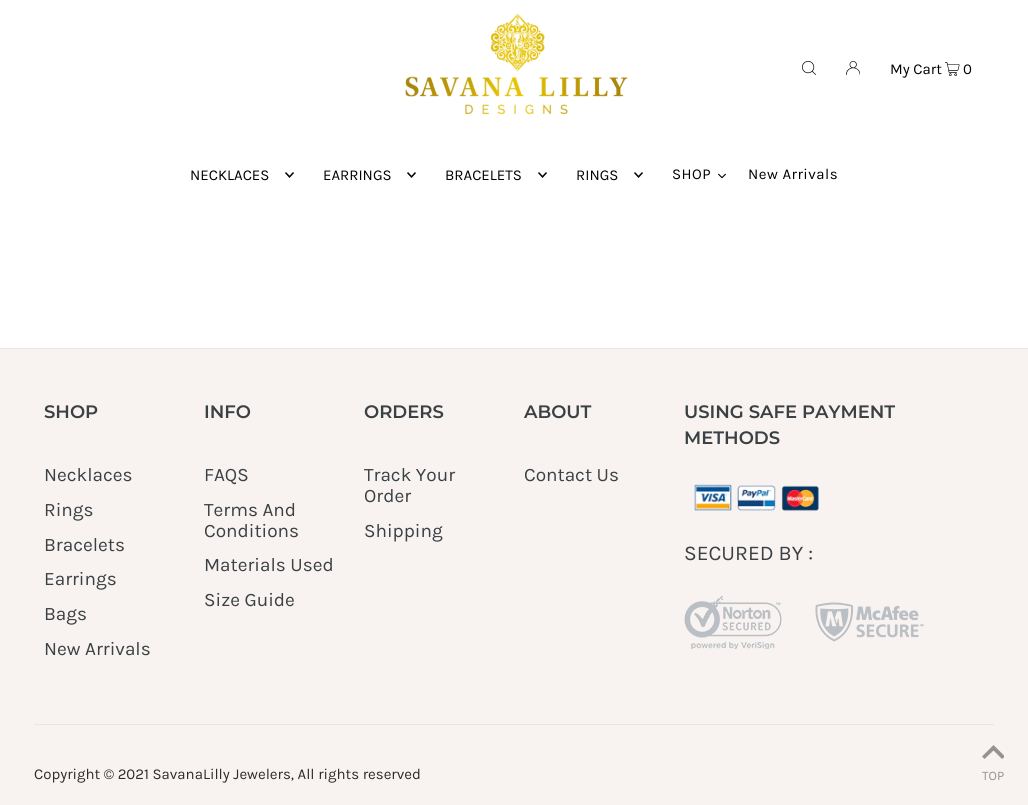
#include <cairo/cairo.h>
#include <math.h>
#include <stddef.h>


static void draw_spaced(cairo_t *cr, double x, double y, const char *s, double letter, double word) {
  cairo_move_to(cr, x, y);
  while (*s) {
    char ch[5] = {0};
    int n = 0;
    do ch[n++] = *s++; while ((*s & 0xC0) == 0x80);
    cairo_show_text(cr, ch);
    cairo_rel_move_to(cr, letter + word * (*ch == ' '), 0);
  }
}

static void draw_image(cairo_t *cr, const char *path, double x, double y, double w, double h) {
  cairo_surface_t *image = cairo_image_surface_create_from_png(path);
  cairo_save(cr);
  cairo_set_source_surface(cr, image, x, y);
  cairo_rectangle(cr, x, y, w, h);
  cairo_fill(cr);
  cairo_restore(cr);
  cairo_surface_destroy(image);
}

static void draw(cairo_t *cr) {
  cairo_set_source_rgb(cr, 1, 1, 1);
  cairo_paint(cr);
  draw_image(cr, "images/1.png", 405, 13, 223, 102);
  draw_image(cr, "images/2.png", 802, 61, 14, 14);
  draw_image(cr, "images/3.png", 846, 61, 14, 14);
  draw_image(cr, "images/4.png", 945, 62, 15, 14);
  draw_image(cr, "images/5.png", 285, 172, 9, 6);
  draw_image(cr, "images/5.png", 407, 172, 9, 6);
  draw_image(cr, "images/5.png", 538, 172, 9, 6);
  draw_image(cr, "images/5.png", 634, 172, 9, 6);
  draw_image(cr, "images/6.png", 718, 173, 8, 6);
  cairo_set_source_rgb(cr, 248 / 255.0, 243 / 255.0, 240 / 255.0);
  cairo_rectangle(cr, 0, 349, 1028, 456);
  cairo_fill(cr);
  cairo_set_source_rgb(cr, 229 / 255.0, 229 / 255.0, 229 / 255.0);
  cairo_rectangle(cr, 0, 348, 1028, 1);
  cairo_fill(cr);
  draw_image(cr, "images/7.png", 694, 484, 126, 28);
  draw_image(cr, "images/8.png", 684, 596, 98, 53);
  draw_image(cr, "images/9.png", 815, 602, 109, 40);
  cairo_rectangle(cr, 34, 724, 960, 1);
  cairo_fill(cr);
  cairo_save(cr);
  cairo_rectangle(cr, 982, 745, 22, 14);
  cairo_clip(cr);
  cairo_set_source_rgb(cr, 149 / 255.0, 146 / 255.0, 144 / 255.0);
  cairo_new_path(cr);
  cairo_move_to(cr, 993.5, 745);
  cairo_line_to(cr, 982, 756.5);
  cairo_line_to(cr, 984.5, 759);
  cairo_line_to(cr, 993.5, 750.5);
  cairo_line_to(cr, 1002, 759);
  cairo_line_to(cr, 1005, 756.5);
  cairo_close_path(cr);
  cairo_fill(cr);
  cairo_restore(cr);
  cairo_select_font_face(cr, "Karla", CAIRO_FONT_SLANT_NORMAL, CAIRO_FONT_WEIGHT_NORMAL);
  cairo_set_font_size(cr, 15);
  cairo_set_source_rgb(cr, 0, 0, 0);
  cairo_move_to(cr, 890, 74);
  cairo_show_text(cr, "My Cart");
  cairo_move_to(cr, 963, 74);
  cairo_show_text(cr, "0");
  cairo_move_to(cr, 190, 180);
  cairo_show_text(cr, "NECKLACES");
  cairo_move_to(cr, 323, 180);
  cairo_show_text(cr, "EARRINGS");
  cairo_move_to(cr, 445, 180);
  cairo_show_text(cr, "BRACELETS");
  cairo_move_to(cr, 576, 180);
  cairo_show_text(cr, "RINGS");
  draw_spaced(cr, 672, 179, "SHOP", 0.5, 0);
  draw_spaced(cr, 748, 179, "New Arrivals", 0.5, 0);
  cairo_select_font_face(cr, "Montserrat SemiBold", CAIRO_FONT_SLANT_NORMAL, CAIRO_FONT_WEIGHT_NORMAL);
  cairo_set_font_size(cr, 18);
  cairo_set_source_rgb(cr, 58 / 255.0, 64 / 255.0, 68 / 255.0);
  cairo_move_to(cr, 44, 418);
  cairo_show_text(cr, "SHOP");
  cairo_select_font_face(cr, "Karla", CAIRO_FONT_SLANT_NORMAL, CAIRO_FONT_WEIGHT_NORMAL);
  cairo_set_font_size(cr, 19);
  cairo_move_to(cr, 44, 481);
  cairo_show_text(cr, "Necklaces");
  cairo_move_to(cr, 44, 516);
  cairo_show_text(cr, "Rings");
  cairo_move_to(cr, 44, 551);
  cairo_show_text(cr, "Bracelets");
  cairo_move_to(cr, 44, 585);
  cairo_show_text(cr, "Earrings");
  cairo_move_to(cr, 44, 620);
  cairo_show_text(cr, "Bags");
  cairo_move_to(cr, 44, 655);
  cairo_show_text(cr, "New Arrivals");
  cairo_select_font_face(cr, "Montserrat SemiBold", CAIRO_FONT_SLANT_NORMAL, CAIRO_FONT_WEIGHT_NORMAL);
  cairo_set_font_size(cr, 18);
  cairo_move_to(cr, 204, 418);
  cairo_show_text(cr, "INFO");
  cairo_select_font_face(cr, "Karla", CAIRO_FONT_SLANT_NORMAL, CAIRO_FONT_WEIGHT_NORMAL);
  cairo_set_font_size(cr, 19);
  cairo_move_to(cr, 204, 481);
  cairo_show_text(cr, "FAQS");
  cairo_move_to(cr, 204, 516);
  cairo_show_text(cr, "Terms And");
  cairo_move_to(cr, 204, 537);
  cairo_show_text(cr, "Conditions");
  cairo_move_to(cr, 204, 571);
  cairo_show_text(cr, "Materials Used");
  cairo_move_to(cr, 204, 606);
  cairo_show_text(cr, "Size Guide");
  cairo_select_font_face(cr, "Montserrat SemiBold", CAIRO_FONT_SLANT_NORMAL, CAIRO_FONT_WEIGHT_NORMAL);
  cairo_set_font_size(cr, 18);
  cairo_move_to(cr, 364, 418);
  cairo_show_text(cr, "ORDERS");
  cairo_select_font_face(cr, "Karla", CAIRO_FONT_SLANT_NORMAL, CAIRO_FONT_WEIGHT_NORMAL);
  cairo_set_font_size(cr, 19);
  cairo_move_to(cr, 364, 481);
  cairo_show_text(cr, "Track Your");
  cairo_move_to(cr, 364, 502);
  cairo_show_text(cr, "Order");
  cairo_move_to(cr, 364, 537);
  cairo_show_text(cr, "Shipping");
  cairo_select_font_face(cr, "Montserrat SemiBold", CAIRO_FONT_SLANT_NORMAL, CAIRO_FONT_WEIGHT_NORMAL);
  cairo_set_font_size(cr, 18);
  cairo_move_to(cr, 524, 418);
  cairo_show_text(cr, "ABOUT");
  cairo_select_font_face(cr, "Karla", CAIRO_FONT_SLANT_NORMAL, CAIRO_FONT_WEIGHT_NORMAL);
  cairo_set_font_size(cr, 19);
  cairo_move_to(cr, 524, 481);
  cairo_show_text(cr, "Contact Us");
  cairo_select_font_face(cr, "Montserrat SemiBold", CAIRO_FONT_SLANT_NORMAL, CAIRO_FONT_WEIGHT_NORMAL);
  cairo_set_font_size(cr, 18);
  cairo_move_to(cr, 684, 418);
  cairo_show_text(cr, "USING SAFE PAYMENT");
  cairo_move_to(cr, 684, 444);
  cairo_show_text(cr, "METHODS");
  cairo_select_font_face(cr, "Karla", CAIRO_FONT_SLANT_NORMAL, CAIRO_FONT_WEIGHT_NORMAL);
  cairo_set_font_size(cr, 21);
  cairo_move_to(cr, 684, 560);
  cairo_show_text(cr, "SECURED BY :");
  cairo_set_font_size(cr, 15);
  cairo_set_source_rgb(cr, 43 / 255.0, 43 / 255.0, 43 / 255.0);
  cairo_move_to(cr, 34, 779);
  cairo_show_text(cr, "Copyright © 2021 SavanaLilly Jewelers, All rights reserved");
  cairo_set_font_size(cr, 13);
  cairo_set_source_rgb(cr, 149 / 255.0, 146 / 255.0, 144 / 255.0);
  cairo_move_to(cr, 982, 780);
  cairo_show_text(cr, "TOP");
}

int main(void) {
  cairo_surface_t *surface = cairo_image_surface_create(CAIRO_FORMAT_RGB24, 1028, 805);
  cairo_t *cr = cairo_create(surface);
  cairo_font_options_t *options = cairo_font_options_create();
  cairo_font_options_set_hint_metrics(options, CAIRO_HINT_METRICS_OFF);
  cairo_font_options_set_hint_style(options, CAIRO_HINT_STYLE_NONE);
  cairo_set_font_options(cr, options);
  cairo_set_miter_limit(cr, 4);
  draw(cr);
  cairo_surface_write_to_png(surface, "out.png");
  cairo_font_options_destroy(options);
  cairo_destroy(cr);
  cairo_surface_destroy(surface);
  return 0;
}
